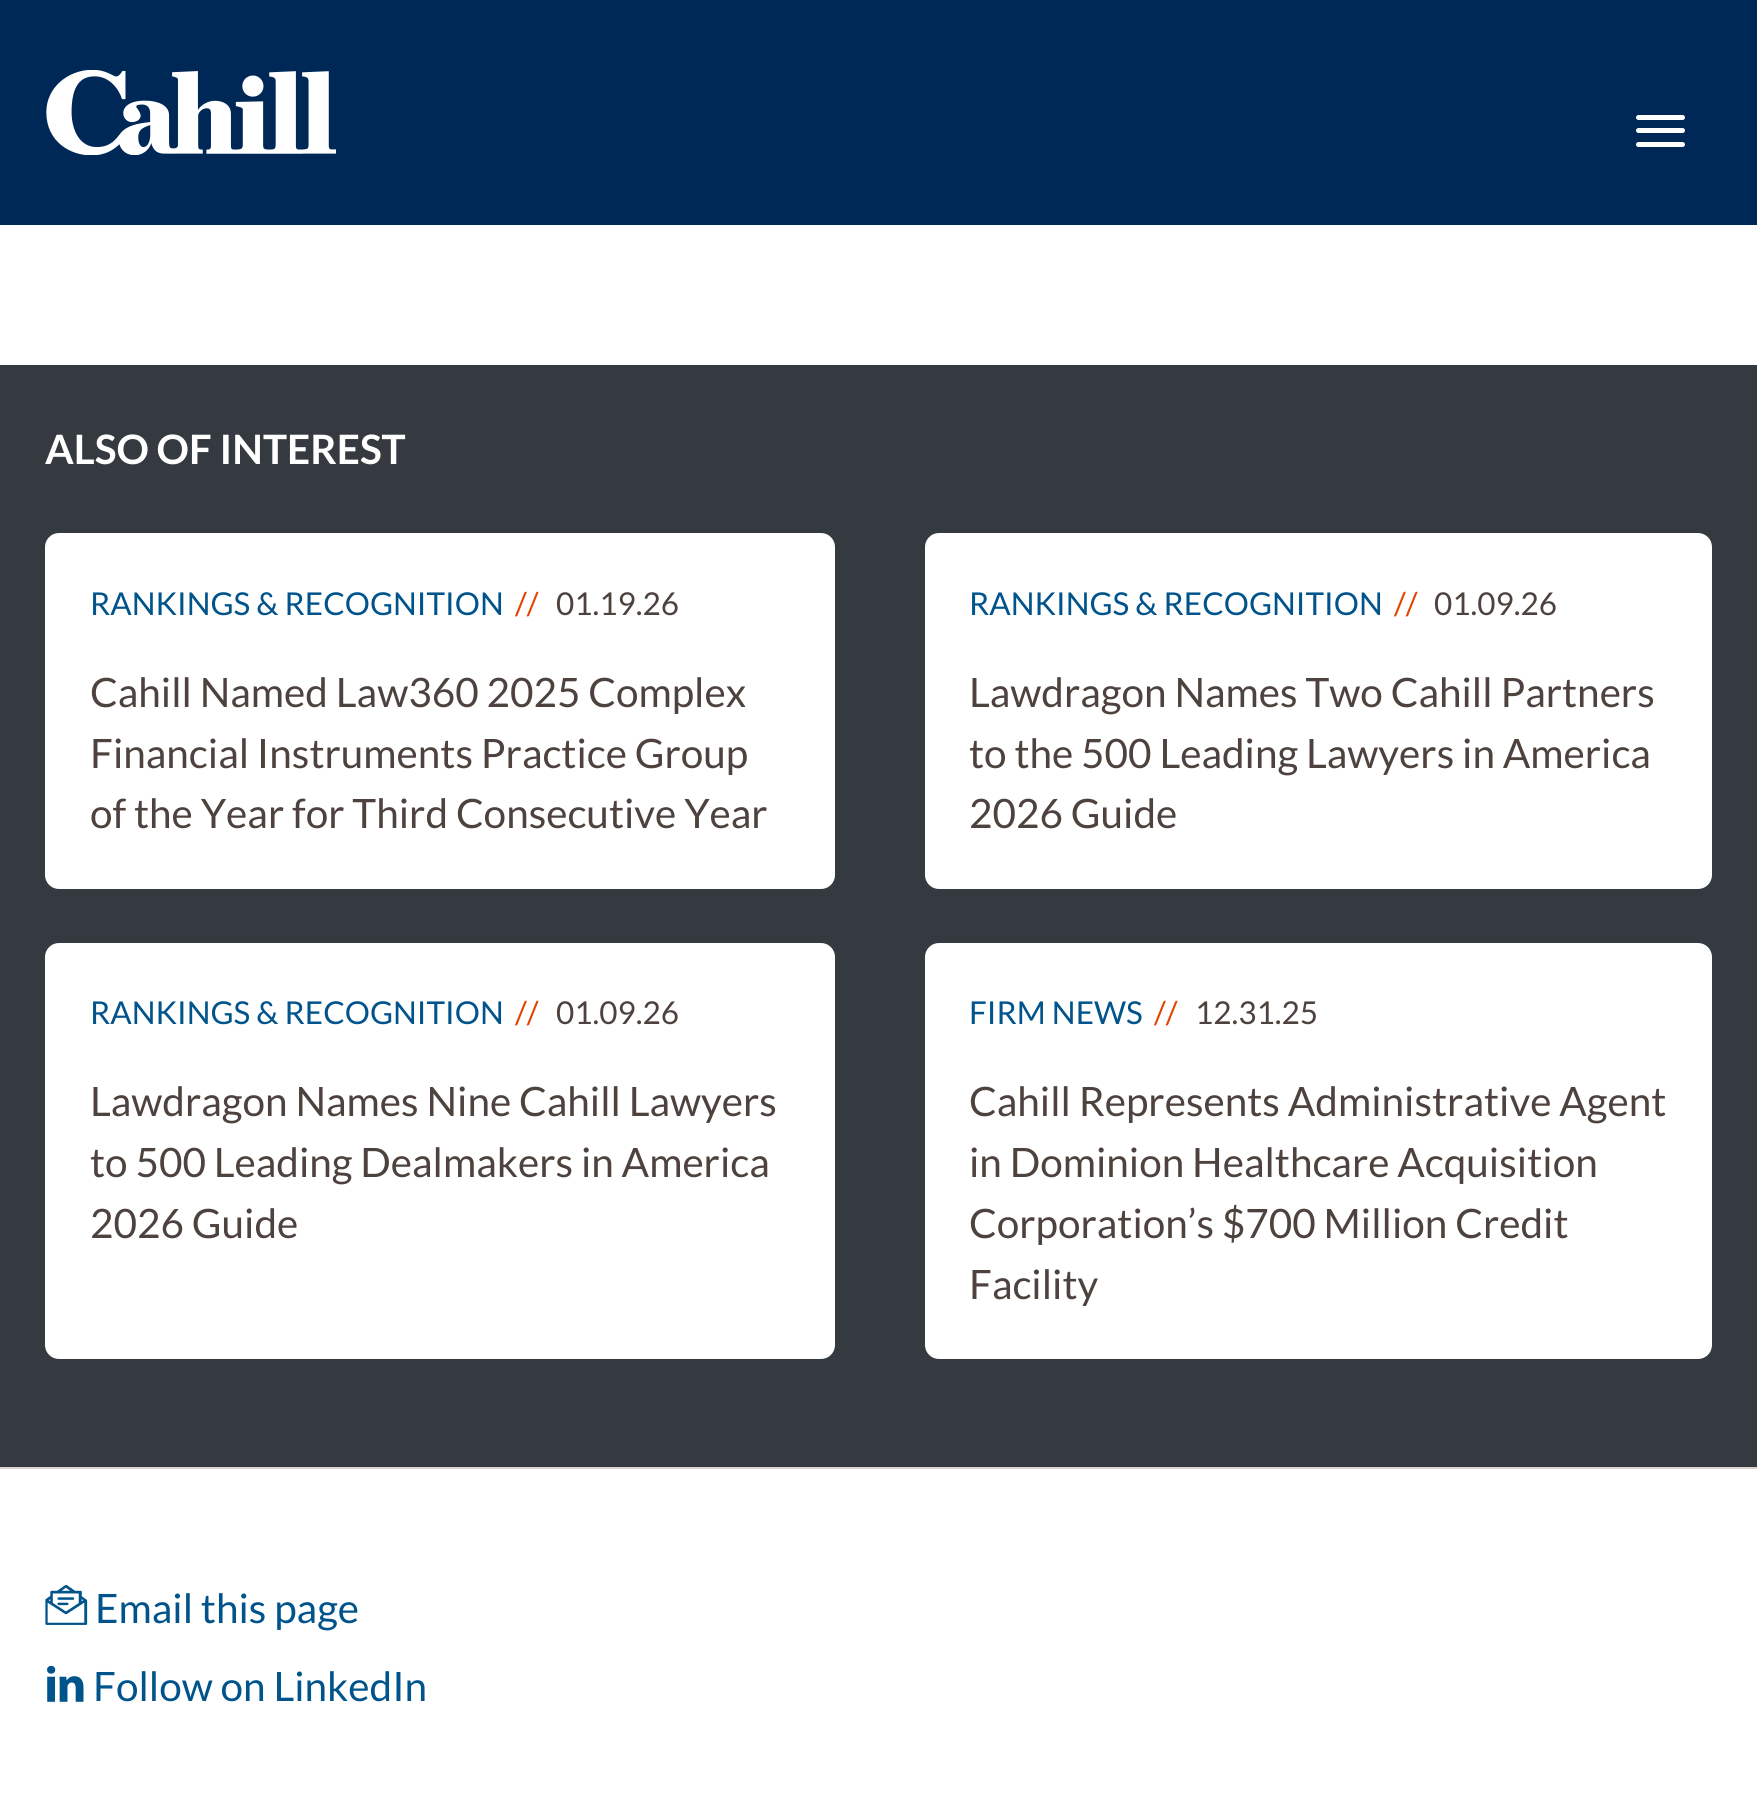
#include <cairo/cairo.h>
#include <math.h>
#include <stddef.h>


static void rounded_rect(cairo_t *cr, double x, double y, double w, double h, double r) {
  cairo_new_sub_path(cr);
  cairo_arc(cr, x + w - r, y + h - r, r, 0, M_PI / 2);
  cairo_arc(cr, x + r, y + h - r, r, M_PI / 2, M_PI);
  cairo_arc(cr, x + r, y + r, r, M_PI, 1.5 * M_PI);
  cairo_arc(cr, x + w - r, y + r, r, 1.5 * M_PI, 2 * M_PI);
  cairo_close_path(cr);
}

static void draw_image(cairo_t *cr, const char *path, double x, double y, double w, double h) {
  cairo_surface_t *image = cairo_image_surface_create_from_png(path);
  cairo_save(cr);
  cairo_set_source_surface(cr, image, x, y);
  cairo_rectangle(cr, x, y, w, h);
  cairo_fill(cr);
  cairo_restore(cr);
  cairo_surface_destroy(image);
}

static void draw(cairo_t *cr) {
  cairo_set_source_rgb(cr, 1, 1, 1);
  cairo_paint(cr);
  cairo_set_source_rgb(cr, 0, 40 / 255.0, 87 / 255.0);
  cairo_rectangle(cr, 0, 0, 1757, 225);
  cairo_fill(cr);
  draw_image(cr, "images/1.png", 46, 70, 291, 85);
  cairo_set_source_rgb(cr, 1, 1, 1);
  rounded_rect(cr, 1636, 115, 49, 5, 2.5);
  cairo_fill(cr);
  rounded_rect(cr, 1636, 128, 49, 5, 2.5);
  cairo_fill(cr);
  rounded_rect(cr, 1636, 142, 49, 5, 2.5);
  cairo_fill(cr);
  cairo_set_source_rgb(cr, 52 / 255.0, 58 / 255.0, 64 / 255.0);
  cairo_rectangle(cr, 0, 365, 1757, 1102);
  cairo_fill(cr);
  cairo_set_source_rgb(cr, 1, 1, 1);
  rounded_rect(cr, 45, 533, 790, 356, 14);
  cairo_fill(cr);
  rounded_rect(cr, 925, 533, 787, 356, 14);
  cairo_fill(cr);
  rounded_rect(cr, 45, 943, 790, 416, 14);
  cairo_fill(cr);
  rounded_rect(cr, 925, 943, 787, 416, 14);
  cairo_fill(cr);
  cairo_set_source_rgb(cr, 217 / 255.0, 210 / 255.0, 207 / 255.0);
  cairo_rectangle(cr, 0, 1467, 1757, 2);
  cairo_fill(cr);
  draw_image(cr, "images/2.png", 45, 1585, 43, 40);
  draw_image(cr, "images/3.png", 47, 1665, 37, 37);
  cairo_select_font_face(cr, "Lato", CAIRO_FONT_SLANT_NORMAL, CAIRO_FONT_WEIGHT_BOLD);
  cairo_set_font_size(cr, 40.5);
  cairo_set_source_rgb(cr, 1, 1, 1);
  cairo_move_to(cr, 45, 464);
  cairo_show_text(cr, "ALSO OF INTEREST");
  cairo_select_font_face(cr, "Lato", CAIRO_FONT_SLANT_NORMAL, CAIRO_FONT_WEIGHT_NORMAL);
  cairo_set_font_size(cr, 31.5);
  cairo_set_source_rgb(cr, 0, 83 / 255.0, 139 / 255.0);
  cairo_move_to(cr, 90, 615);
  cairo_show_text(cr, "RANKINGS & RECOGNITION");
  cairo_set_source_rgb(cr, 224 / 255.0, 68 / 255.0, 3 / 255.0);
  cairo_move_to(cr, 515, 615);
  cairo_show_text(cr, "//");
  cairo_set_source_rgb(cr, 77 / 255.0, 66 / 255.0, 61 / 255.0);
  cairo_move_to(cr, 556, 615);
  cairo_show_text(cr, "01.19.26");
  cairo_set_font_size(cr, 40.5);
  cairo_move_to(cr, 90, 707);
  cairo_show_text(cr, "Cahill Named Law360 2025 Complex");
  cairo_move_to(cr, 90, 768);
  cairo_show_text(cr, "Financial Instruments Practice Group");
  cairo_move_to(cr, 90, 828);
  cairo_show_text(cr, "of the Year for Third Consecutive Year");
  cairo_set_font_size(cr, 31.5);
  cairo_set_source_rgb(cr, 0, 83 / 255.0, 139 / 255.0);
  cairo_move_to(cr, 969, 615);
  cairo_show_text(cr, "RANKINGS & RECOGNITION");
  cairo_set_source_rgb(cr, 224 / 255.0, 68 / 255.0, 3 / 255.0);
  cairo_move_to(cr, 1394, 615);
  cairo_show_text(cr, "//");
  cairo_set_source_rgb(cr, 77 / 255.0, 66 / 255.0, 61 / 255.0);
  cairo_move_to(cr, 1434, 615);
  cairo_show_text(cr, "01.09.26");
  cairo_set_font_size(cr, 40.5);
  cairo_move_to(cr, 969, 707);
  cairo_show_text(cr, "Lawdragon Names Two Cahill Partners");
  cairo_move_to(cr, 969, 768);
  cairo_show_text(cr, "to the 500 Leading Lawyers in America");
  cairo_move_to(cr, 969, 828);
  cairo_show_text(cr, "2026 Guide");
  cairo_set_font_size(cr, 31.5);
  cairo_set_source_rgb(cr, 0, 83 / 255.0, 139 / 255.0);
  cairo_move_to(cr, 90, 1024);
  cairo_show_text(cr, "RANKINGS & RECOGNITION");
  cairo_set_source_rgb(cr, 224 / 255.0, 68 / 255.0, 3 / 255.0);
  cairo_move_to(cr, 515, 1024);
  cairo_show_text(cr, "//");
  cairo_set_source_rgb(cr, 77 / 255.0, 66 / 255.0, 61 / 255.0);
  cairo_move_to(cr, 556, 1024);
  cairo_show_text(cr, "01.09.26");
  cairo_set_font_size(cr, 40.5);
  cairo_move_to(cr, 90, 1116);
  cairo_show_text(cr, "Lawdragon Names Nine Cahill Lawyers");
  cairo_move_to(cr, 90, 1177);
  cairo_show_text(cr, "to 500 Leading Dealmakers in America");
  cairo_move_to(cr, 90, 1238);
  cairo_show_text(cr, "2026 Guide");
  cairo_set_font_size(cr, 31.5);
  cairo_set_source_rgb(cr, 0, 83 / 255.0, 139 / 255.0);
  cairo_move_to(cr, 969, 1024);
  cairo_show_text(cr, "FIRM NEWS");
  cairo_set_source_rgb(cr, 224 / 255.0, 68 / 255.0, 3 / 255.0);
  cairo_move_to(cr, 1154, 1024);
  cairo_show_text(cr, "//");
  cairo_set_source_rgb(cr, 77 / 255.0, 66 / 255.0, 61 / 255.0);
  cairo_move_to(cr, 1195, 1024);
  cairo_show_text(cr, "12.31.25");
  cairo_set_font_size(cr, 40.5);
  cairo_move_to(cr, 969, 1116);
  cairo_show_text(cr, "Cahill Represents Administrative Agent");
  cairo_move_to(cr, 969, 1177);
  cairo_show_text(cr, "in Dominion Healthcare Acquisition");
  cairo_move_to(cr, 969, 1238);
  cairo_show_text(cr, "Corporation’s $700 Million Credit");
  cairo_move_to(cr, 969, 1299);
  cairo_show_text(cr, "Facility");
  cairo_set_source_rgb(cr, 0, 83 / 255.0, 139 / 255.0);
  cairo_move_to(cr, 95, 1623);
  cairo_show_text(cr, "Email this page");
  cairo_move_to(cr, 93, 1701);
  cairo_show_text(cr, "Follow on LinkedIn");
}

int main(void) {
  cairo_surface_t *surface = cairo_image_surface_create(CAIRO_FORMAT_RGB24, 1757, 1812);
  cairo_t *cr = cairo_create(surface);
  cairo_font_options_t *options = cairo_font_options_create();
  cairo_font_options_set_hint_metrics(options, CAIRO_HINT_METRICS_OFF);
  cairo_font_options_set_hint_style(options, CAIRO_HINT_STYLE_NONE);
  cairo_set_font_options(cr, options);
  cairo_set_miter_limit(cr, 4);
  draw(cr);
  cairo_surface_write_to_png(surface, "out.png");
  cairo_font_options_destroy(options);
  cairo_destroy(cr);
  cairo_surface_destroy(surface);
  return 0;
}
